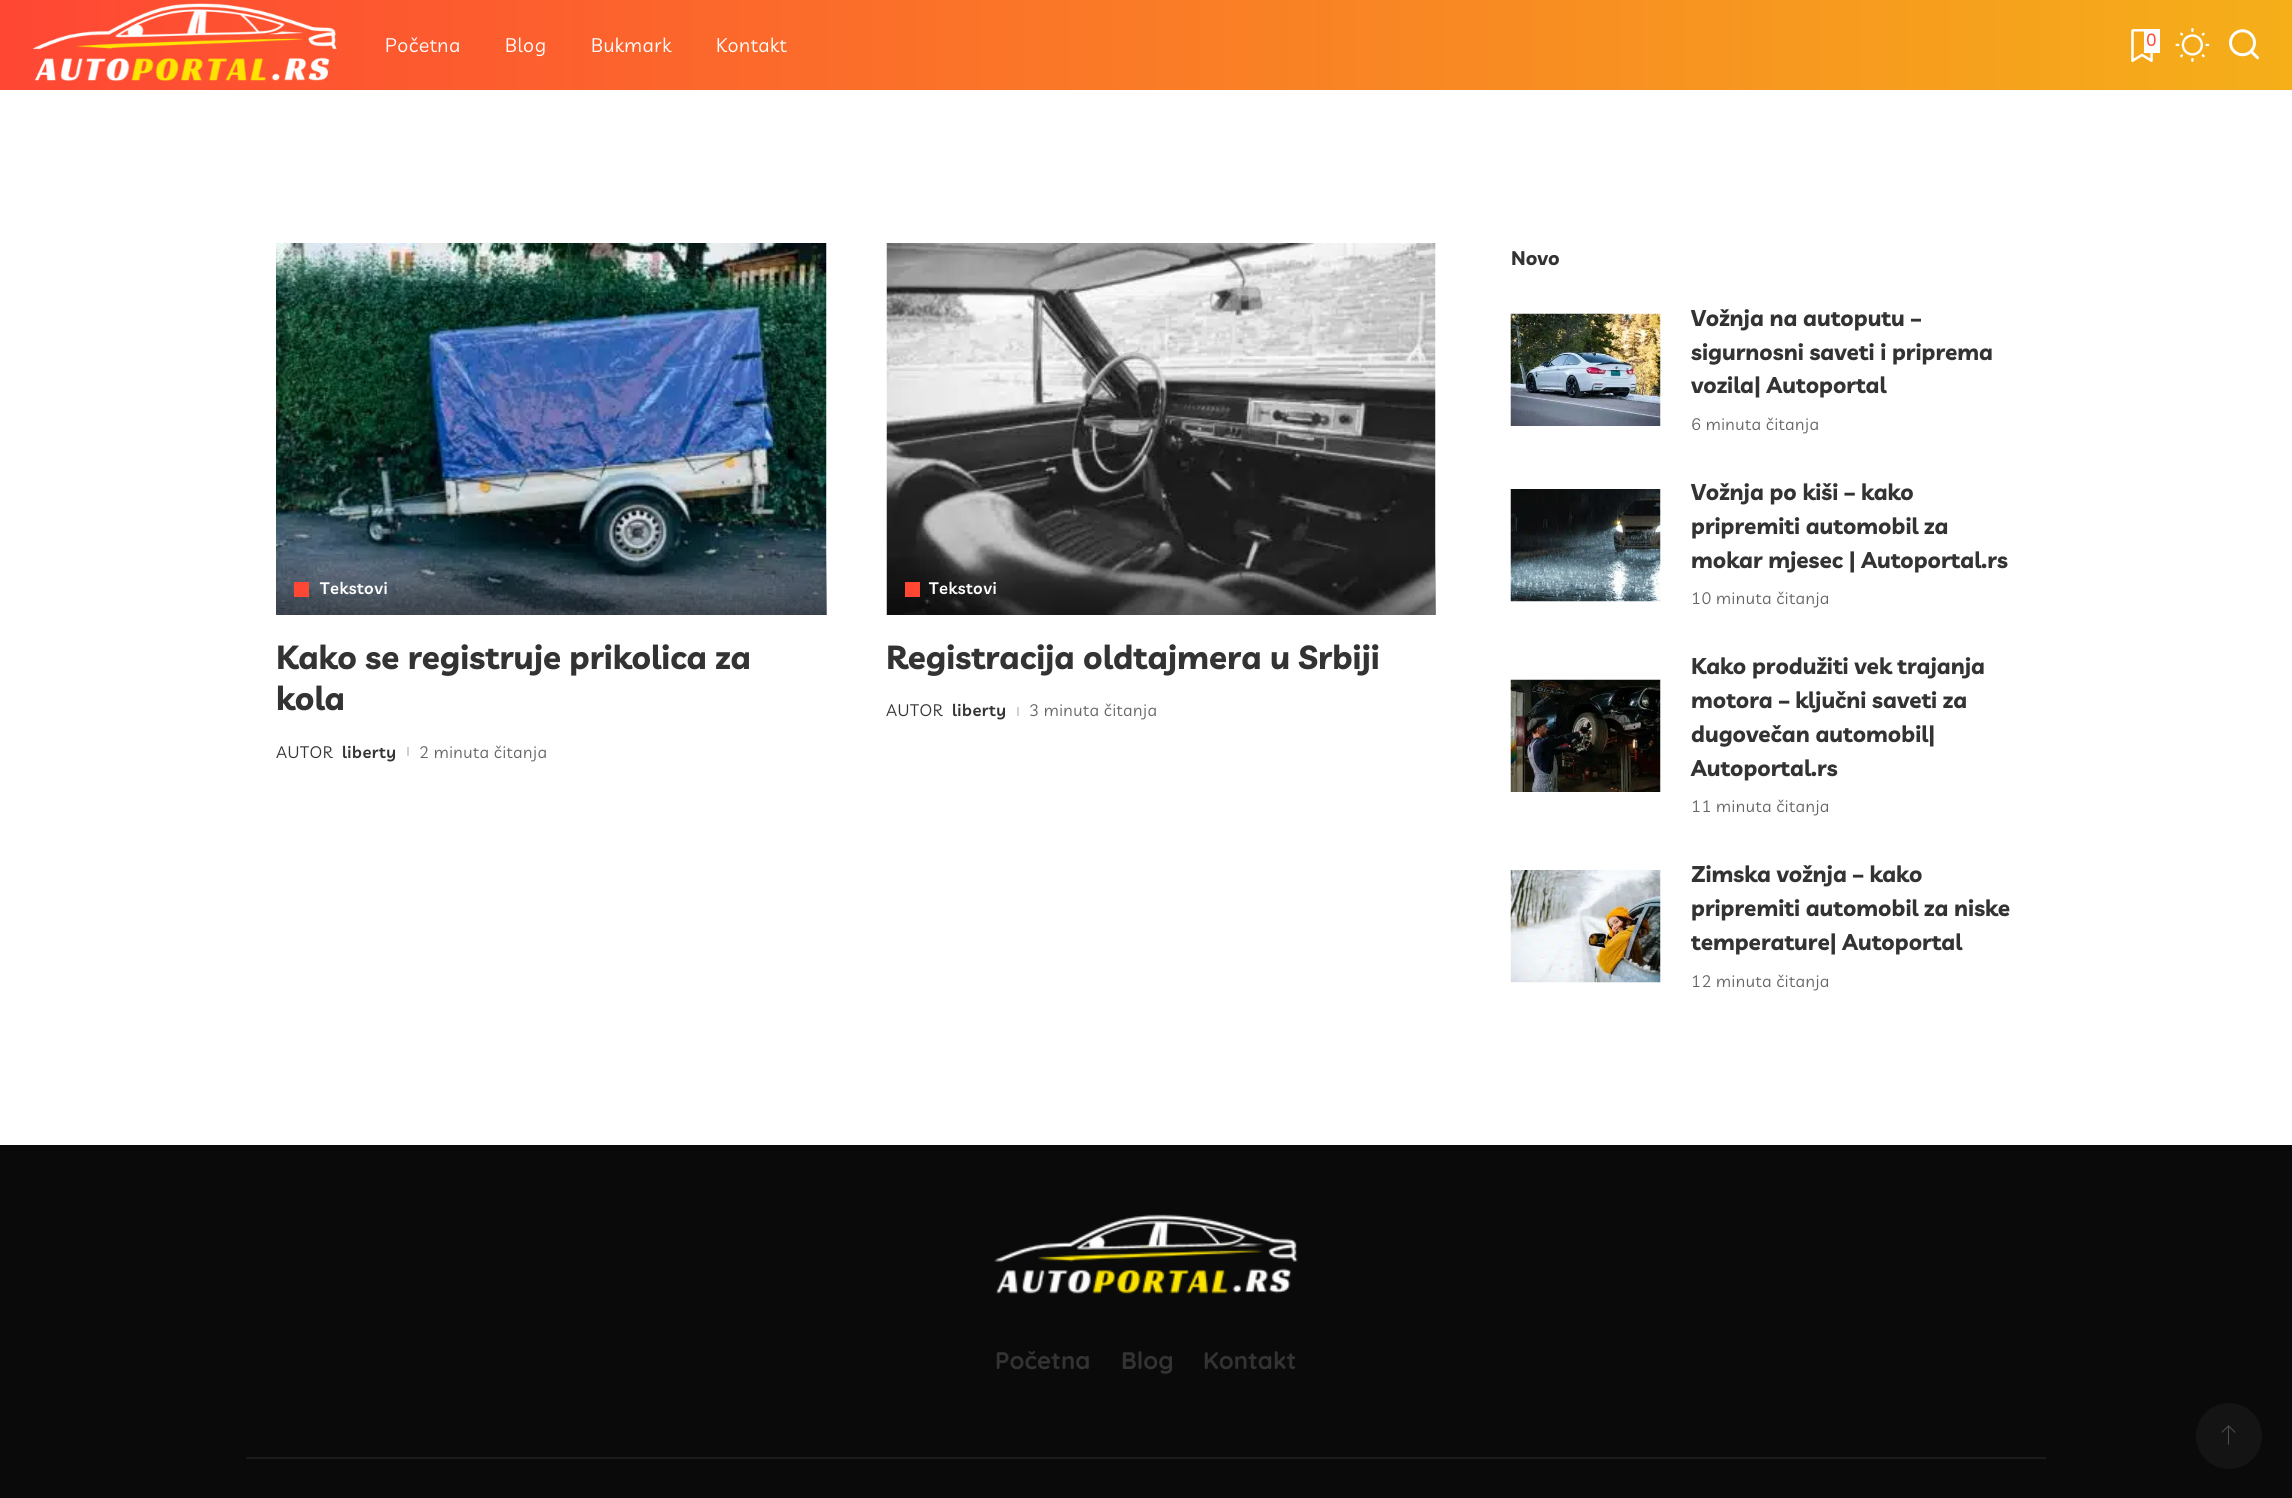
#include <cairo/cairo.h>
#include <math.h>
#include <stddef.h>


static void draw_spaced(cairo_t *cr, double x, double y, const char *s, double letter, double word) {
  cairo_move_to(cr, x, y);
  while (*s) {
    char ch[5] = {0};
    int n = 0;
    do ch[n++] = *s++; while ((*s & 0xC0) == 0x80);
    cairo_show_text(cr, ch);
    cairo_rel_move_to(cr, letter + word * (*ch == ' '), 0);
  }
}

static void draw_image(cairo_t *cr, const char *path, double x, double y, double w, double h) {
  cairo_surface_t *image = cairo_image_surface_create_from_png(path);
  cairo_save(cr);
  cairo_set_source_surface(cr, image, x, y);
  cairo_rectangle(cr, x, y, w, h);
  cairo_fill(cr);
  cairo_restore(cr);
  cairo_surface_destroy(image);
}

static void draw(cairo_t *cr) {
  cairo_pattern_t *gradient;
  cairo_set_source_rgb(cr, 1, 1, 1);
  cairo_paint(cr);
  gradient = cairo_pattern_create_linear(0, 45, 2292, 45);
  cairo_pattern_add_color_stop_rgba(gradient, 0, 1, 71 / 255.0, 52 / 255.0, 1);
  cairo_pattern_add_color_stop_rgba(gradient, 1, 245 / 255.0, 175 / 255.0, 25 / 255.0, 1);
  cairo_set_source(cr, gradient);
  cairo_pattern_destroy(gradient);
  cairo_rectangle(cr, 0, 0, 2292, 90);
  cairo_fill(cr);
  draw_image(cr, "images/1.png", 32, 3, 305, 78);
  draw_image(cr, "images/2.png", 2131, 29, 22, 34);
  cairo_set_source_rgb(cr, 1, 1, 1);
  cairo_rectangle(cr, 2144, 29, 16, 24);
  cairo_fill(cr);
  draw_image(cr, "images/3.png", 2175, 28, 35, 34);
  draw_image(cr, "images/4.png", 2229, 29, 30, 31);
  draw_image(cr, "images/5.png", 276, 243, 551, 372);
  gradient = cairo_pattern_create_linear(551, 551, 551, 615);
  cairo_pattern_add_color_stop_rgba(gradient, 0, 0, 0, 0, 0);
  cairo_pattern_add_color_stop_rgba(gradient, 1, 0, 0, 0, 0.5);
  cairo_set_source(cr, gradient);
  cairo_pattern_destroy(gradient);
  cairo_rectangle(cr, 276, 554, 551, 61);
  cairo_fill(cr);
  cairo_set_source_rgb(cr, 1, 71 / 255.0, 52 / 255.0);
  cairo_rectangle(cr, 294, 582, 15, 15);
  cairo_fill(cr);
  cairo_set_source_rgb(cr, 209 / 255.0, 209 / 255.0, 209 / 255.0);
  cairo_rectangle(cr, 407, 747, 2, 9);
  cairo_fill(cr);
  draw_image(cr, "images/6.png", 886, 243, 550, 372);
  gradient = cairo_pattern_create_linear(1161, 551, 1161, 615);
  cairo_pattern_add_color_stop_rgba(gradient, 0, 0, 0, 0, 0);
  cairo_pattern_add_color_stop_rgba(gradient, 1, 0, 0, 0, 0.5);
  cairo_set_source(cr, gradient);
  cairo_pattern_destroy(gradient);
  cairo_rectangle(cr, 887, 554, 549, 61);
  cairo_fill(cr);
  cairo_set_source_rgb(cr, 1, 71 / 255.0, 52 / 255.0);
  cairo_rectangle(cr, 905, 582, 15, 15);
  cairo_fill(cr);
  cairo_set_source_rgb(cr, 209 / 255.0, 209 / 255.0, 209 / 255.0);
  cairo_rectangle(cr, 1017, 707, 2, 9);
  cairo_fill(cr);
  draw_image(cr, "images/7.png", 1510, 313, 151, 113);
  draw_image(cr, "images/8.png", 1510, 489, 151, 113);
  draw_image(cr, "images/9.png", 1510, 679, 151, 113);
  draw_image(cr, "images/10.png", 1510, 870, 151, 113);
  cairo_set_source_rgb(cr, 10 / 255.0, 10 / 255.0, 10 / 255.0);
  cairo_rectangle(cr, 0, 1145, 2292, 353);
  cairo_fill(cr);
  draw_image(cr, "images/11.png", 994, 1214, 304, 80);
  cairo_set_source_rgb(cr, 27 / 255.0, 27 / 255.0, 27 / 255.0);
  cairo_rectangle(cr, 246, 1457, 1800, 2);
  cairo_fill(cr);
  cairo_set_source_rgb(cr, 20 / 255.0, 20 / 255.0, 20 / 255.0);
  cairo_arc(cr, 2229, 1436, 33, 0, 2 * M_PI);
  cairo_fill(cr);
  draw_image(cr, "images/12.png", 2221, 1425, 15, 20);
  cairo_select_font_face(cr, "Livvic", CAIRO_FONT_SLANT_NORMAL, CAIRO_FONT_WEIGHT_NORMAL);
  cairo_set_font_size(cr, 19.5);
  cairo_set_source_rgb(cr, 1, 1, 1);
  draw_spaced(cr, 385, 52, "Početna", 0.5, 0);
  draw_spaced(cr, 505, 52, "Blog", 0.5, 0);
  draw_spaced(cr, 591, 52, "Bukmark", 0.5, 0);
  draw_spaced(cr, 716, 52, "Kontakt", 0.5, 0);
  cairo_select_font_face(cr, "Poppins", CAIRO_FONT_SLANT_NORMAL, CAIRO_FONT_WEIGHT_NORMAL);
  cairo_set_font_size(cr, 17);
  cairo_set_source_rgb(cr, 1, 71 / 255.0, 52 / 255.0);
  cairo_move_to(cr, 2146, 46);
  cairo_show_text(cr, "0");
  cairo_select_font_face(cr, "Livvic SemiBold", CAIRO_FONT_SLANT_NORMAL, CAIRO_FONT_WEIGHT_NORMAL);
  cairo_set_font_size(cr, 16.5);
  cairo_set_source_rgb(cr, 1, 1, 1);
  draw_spaced(cr, 320, 594, "Tekstovi", 0.5, 0);
  cairo_select_font_face(cr, "Livvic", CAIRO_FONT_SLANT_NORMAL, CAIRO_FONT_WEIGHT_BOLD);
  cairo_set_font_size(cr, 33);
  cairo_set_source_rgb(cr, 51 / 255.0, 51 / 255.0, 51 / 255.0);
  cairo_move_to(cr, 276, 669);
  cairo_show_text(cr, "Kako se registruje prikolica za");
  cairo_move_to(cr, 276, 710);
  cairo_show_text(cr, "kola");
  cairo_select_font_face(cr, "Livvic", CAIRO_FONT_SLANT_NORMAL, CAIRO_FONT_WEIGHT_NORMAL);
  cairo_set_font_size(cr, 16.5);
  draw_spaced(cr, 276, 758, "AUTOR", 0.5, 0);
  cairo_select_font_face(cr, "Livvic SemiBold", CAIRO_FONT_SLANT_NORMAL, CAIRO_FONT_WEIGHT_NORMAL);
  draw_spaced(cr, 342, 758, "liberty", 0.5, 0);
  cairo_select_font_face(cr, "Livvic", CAIRO_FONT_SLANT_NORMAL, CAIRO_FONT_WEIGHT_NORMAL);
  cairo_set_source_rgb(cr, 102 / 255.0, 102 / 255.0, 102 / 255.0);
  draw_spaced(cr, 419, 758, "2 minuta čitanja", 0.5, 0);
  cairo_select_font_face(cr, "Livvic SemiBold", CAIRO_FONT_SLANT_NORMAL, CAIRO_FONT_WEIGHT_NORMAL);
  cairo_set_source_rgb(cr, 1, 1, 1);
  draw_spaced(cr, 929, 594, "Tekstovi", 0.5, 0);
  cairo_select_font_face(cr, "Livvic", CAIRO_FONT_SLANT_NORMAL, CAIRO_FONT_WEIGHT_BOLD);
  cairo_set_font_size(cr, 33);
  cairo_set_source_rgb(cr, 51 / 255.0, 51 / 255.0, 51 / 255.0);
  cairo_move_to(cr, 886, 669);
  cairo_show_text(cr, "Registracija oldtajmera u Srbiji");
  cairo_select_font_face(cr, "Livvic", CAIRO_FONT_SLANT_NORMAL, CAIRO_FONT_WEIGHT_NORMAL);
  cairo_set_font_size(cr, 16.5);
  draw_spaced(cr, 886, 716, "AUTOR", 0.5, 0);
  cairo_select_font_face(cr, "Livvic SemiBold", CAIRO_FONT_SLANT_NORMAL, CAIRO_FONT_WEIGHT_NORMAL);
  draw_spaced(cr, 952, 716, "liberty", 0.5, 0);
  cairo_select_font_face(cr, "Livvic", CAIRO_FONT_SLANT_NORMAL, CAIRO_FONT_WEIGHT_NORMAL);
  cairo_set_source_rgb(cr, 102 / 255.0, 102 / 255.0, 102 / 255.0);
  draw_spaced(cr, 1029, 716, "3 minuta čitanja", 0.5, 0);
  cairo_select_font_face(cr, "Livvic", CAIRO_FONT_SLANT_NORMAL, CAIRO_FONT_WEIGHT_BOLD);
  cairo_set_font_size(cr, 19.5);
  cairo_set_source_rgb(cr, 51 / 255.0, 51 / 255.0, 51 / 255.0);
  cairo_move_to(cr, 1511, 265);
  cairo_show_text(cr, "Novo");
  cairo_set_font_size(cr, 22.5);
  cairo_move_to(cr, 1691, 326);
  cairo_show_text(cr, "Vožnja na autoputu –");
  cairo_move_to(cr, 1691, 360);
  cairo_show_text(cr, "sigurnosni saveti i priprema");
  cairo_move_to(cr, 1691, 393);
  cairo_show_text(cr, "vozila| Autoportal");
  cairo_select_font_face(cr, "Livvic", CAIRO_FONT_SLANT_NORMAL, CAIRO_FONT_WEIGHT_NORMAL);
  cairo_set_font_size(cr, 16.5);
  cairo_set_source_rgb(cr, 102 / 255.0, 102 / 255.0, 102 / 255.0);
  draw_spaced(cr, 1691, 430, "6 minuta čitanja", 0.5, 0);
  cairo_select_font_face(cr, "Livvic", CAIRO_FONT_SLANT_NORMAL, CAIRO_FONT_WEIGHT_BOLD);
  cairo_set_font_size(cr, 22.5);
  cairo_set_source_rgb(cr, 51 / 255.0, 51 / 255.0, 51 / 255.0);
  cairo_move_to(cr, 1691, 500);
  cairo_show_text(cr, "Vožnja po kiši – kako");
  cairo_move_to(cr, 1691, 534);
  cairo_show_text(cr, "pripremiti automobil za");
  cairo_move_to(cr, 1691, 568);
  cairo_show_text(cr, "mokar mjesec | Autoportal.rs");
  cairo_select_font_face(cr, "Livvic", CAIRO_FONT_SLANT_NORMAL, CAIRO_FONT_WEIGHT_NORMAL);
  cairo_set_font_size(cr, 16.5);
  cairo_set_source_rgb(cr, 102 / 255.0, 102 / 255.0, 102 / 255.0);
  draw_spaced(cr, 1691, 604, "10 minuta čitanja", 0.5, 0);
  cairo_select_font_face(cr, "Livvic", CAIRO_FONT_SLANT_NORMAL, CAIRO_FONT_WEIGHT_BOLD);
  cairo_set_font_size(cr, 22.5);
  cairo_set_source_rgb(cr, 51 / 255.0, 51 / 255.0, 51 / 255.0);
  cairo_move_to(cr, 1691, 674);
  cairo_show_text(cr, "Kako produžiti vek trajanja");
  cairo_move_to(cr, 1691, 708);
  cairo_show_text(cr, "motora – ključni saveti za");
  cairo_move_to(cr, 1691, 742);
  cairo_show_text(cr, "dugovečan automobil|");
  cairo_move_to(cr, 1691, 776);
  cairo_show_text(cr, "Autoportal.rs");
  cairo_select_font_face(cr, "Livvic", CAIRO_FONT_SLANT_NORMAL, CAIRO_FONT_WEIGHT_NORMAL);
  cairo_set_font_size(cr, 16.5);
  cairo_set_source_rgb(cr, 102 / 255.0, 102 / 255.0, 102 / 255.0);
  draw_spaced(cr, 1691, 812, "11 minuta čitanja", 0.5, 0);
  cairo_select_font_face(cr, "Livvic", CAIRO_FONT_SLANT_NORMAL, CAIRO_FONT_WEIGHT_BOLD);
  cairo_set_font_size(cr, 22.5);
  cairo_set_source_rgb(cr, 51 / 255.0, 51 / 255.0, 51 / 255.0);
  cairo_move_to(cr, 1691, 882);
  cairo_show_text(cr, "Zimska vožnja – kako");
  cairo_move_to(cr, 1691, 916);
  cairo_show_text(cr, "pripremiti automobil za niske");
  cairo_move_to(cr, 1691, 950);
  cairo_show_text(cr, "temperature| Autoportal");
  cairo_select_font_face(cr, "Livvic", CAIRO_FONT_SLANT_NORMAL, CAIRO_FONT_WEIGHT_NORMAL);
  cairo_set_font_size(cr, 16.5);
  cairo_set_source_rgb(cr, 102 / 255.0, 102 / 255.0, 102 / 255.0);
  draw_spaced(cr, 1691, 987, "12 minuta čitanja", 0.5, 0);
  cairo_select_font_face(cr, "Quicksand", CAIRO_FONT_SLANT_NORMAL, CAIRO_FONT_WEIGHT_BOLD);
  cairo_set_font_size(cr, 24);
  cairo_set_source_rgb(cr, 51 / 255.0, 51 / 255.0, 51 / 255.0);
  cairo_move_to(cr, 995, 1369);
  cairo_show_text(cr, "Početna");
  cairo_move_to(cr, 1121, 1369);
  cairo_show_text(cr, "Blog");
  cairo_move_to(cr, 1203, 1369);
  cairo_show_text(cr, "Kontakt");
}

int main(void) {
  cairo_surface_t *surface = cairo_image_surface_create(CAIRO_FORMAT_RGB24, 2292, 1498);
  cairo_t *cr = cairo_create(surface);
  cairo_font_options_t *options = cairo_font_options_create();
  cairo_font_options_set_hint_metrics(options, CAIRO_HINT_METRICS_OFF);
  cairo_font_options_set_hint_style(options, CAIRO_HINT_STYLE_NONE);
  cairo_set_font_options(cr, options);
  cairo_set_miter_limit(cr, 4);
  draw(cr);
  cairo_surface_write_to_png(surface, "out.png");
  cairo_font_options_destroy(options);
  cairo_destroy(cr);
  cairo_surface_destroy(surface);
  return 0;
}
